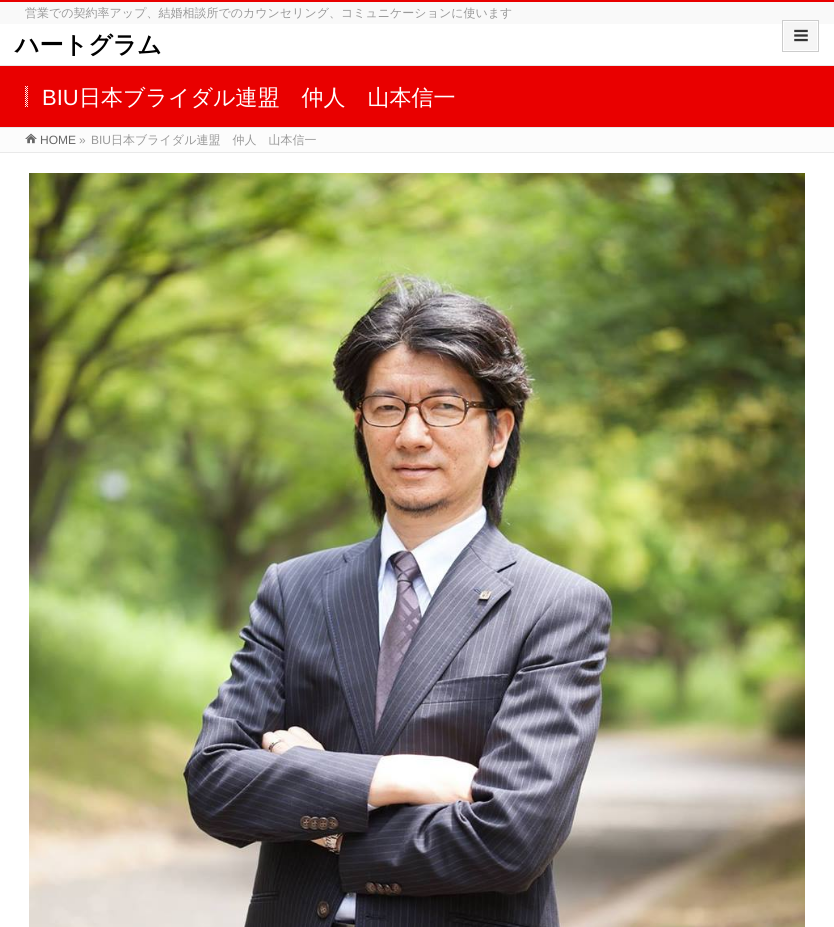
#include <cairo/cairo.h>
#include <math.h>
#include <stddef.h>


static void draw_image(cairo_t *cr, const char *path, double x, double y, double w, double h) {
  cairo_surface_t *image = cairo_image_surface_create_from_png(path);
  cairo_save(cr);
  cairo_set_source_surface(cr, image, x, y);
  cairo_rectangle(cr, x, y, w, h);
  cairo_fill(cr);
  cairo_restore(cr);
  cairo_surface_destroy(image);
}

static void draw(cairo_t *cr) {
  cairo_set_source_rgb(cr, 1, 1, 1);
  cairo_paint(cr);
  cairo_set_source_rgb(cr, 249 / 255.0, 249 / 255.0, 249 / 255.0);
  cairo_rectangle(cr, 0, 2, 834, 22);
  cairo_fill(cr);
  cairo_set_source_rgb(cr, 233 / 255.0, 0, 0);
  cairo_rectangle(cr, 0, 0, 834, 2);
  cairo_fill(cr);
  cairo_set_source_rgb(cr, 245 / 255.0, 245 / 255.0, 245 / 255.0);
  cairo_rectangle(cr, 783.5, 21.5, 34, 29);
  cairo_fill_preserve(cr);
  cairo_set_source_rgb(cr, 254 / 255.0, 254 / 255.0, 254 / 255.0);
  cairo_set_line_width(cr, 1);
  cairo_stroke(cr);
  cairo_rectangle(cr, 782.5, 20.5, 36, 31);
  cairo_set_source_rgb(cr, 204 / 255.0, 204 / 255.0, 204 / 255.0);
  cairo_stroke(cr);
  draw_image(cr, "images/1.png", 794, 29, 14, 13);
  cairo_set_source_rgb(cr, 233 / 255.0, 0, 0);
  cairo_rectangle(cr, 0, 66, 834, 61);
  cairo_fill(cr);
  cairo_set_source_rgb(cr, 233 / 255.0, 233 / 255.0, 233 / 255.0);
  cairo_rectangle(cr, 0, 65, 834, 1);
  cairo_fill(cr);
  cairo_rectangle(cr, 0, 127, 834, 1);
  cairo_fill(cr);
  draw_image(cr, "images/2.png", 25, 86, 3, 21);
  cairo_set_source_rgb(cr, 252 / 255.0, 252 / 255.0, 252 / 255.0);
  cairo_rectangle(cr, 0, 128, 834, 24);
  cairo_fill(cr);
  draw_image(cr, "images/3.png", 25, 133, 12, 11);
  cairo_set_source_rgb(cr, 233 / 255.0, 233 / 255.0, 233 / 255.0);
  cairo_rectangle(cr, 0, 152, 834, 1);
  cairo_fill(cr);
  draw_image(cr, "images/4.png", 29, 173, 776, 754);
  cairo_select_font_face(cr, "WenQuanYi Zen Hei Medium", CAIRO_FONT_SLANT_NORMAL, CAIRO_FONT_WEIGHT_NORMAL);
  cairo_set_font_size(cr, 12);
  cairo_set_source_rgb(cr, 153 / 255.0, 153 / 255.0, 153 / 255.0);
  cairo_move_to(cr, 25, 17);
  cairo_show_text(cr, "営業での契約率アップ、結婚相談所でのカウンセリング、コミュニケーションに使います");
  cairo_select_font_face(cr, "WenQuanYi Zen Hei", CAIRO_FONT_SLANT_NORMAL, CAIRO_FONT_WEIGHT_BOLD);
  cairo_set_font_size(cr, 24);
  cairo_set_source_rgb(cr, 0, 0, 0);
  cairo_move_to(cr, 15, 53);
  cairo_show_text(cr, "ハートグラム");
  cairo_select_font_face(cr, "Liberation Sans", CAIRO_FONT_SLANT_NORMAL, CAIRO_FONT_WEIGHT_NORMAL);
  cairo_set_font_size(cr, 22);
  cairo_set_source_rgb(cr, 1, 1, 1);
  cairo_move_to(cr, 42, 105);
  cairo_show_text(cr, "BIU");
  cairo_select_font_face(cr, "WenQuanYi Zen Hei Medium", CAIRO_FONT_SLANT_NORMAL, CAIRO_FONT_WEIGHT_NORMAL);
  cairo_move_to(cr, 79, 105);
  cairo_show_text(cr, "日本ブライダル連盟　仲人　山本信一");
  cairo_select_font_face(cr, "Liberation Sans", CAIRO_FONT_SLANT_NORMAL, CAIRO_FONT_WEIGHT_NORMAL);
  cairo_set_font_size(cr, 12);
  cairo_set_source_rgb(cr, 102 / 255.0, 102 / 255.0, 102 / 255.0);
  cairo_move_to(cr, 40, 144);
  cairo_show_text(cr, "HOME");
  cairo_set_source_rgb(cr, 153 / 255.0, 153 / 255.0, 153 / 255.0);
  cairo_move_to(cr, 79, 144);
  cairo_show_text(cr, "»");
  cairo_move_to(cr, 91, 144);
  cairo_show_text(cr, "BIU");
  cairo_select_font_face(cr, "WenQuanYi Zen Hei Medium", CAIRO_FONT_SLANT_NORMAL, CAIRO_FONT_WEIGHT_NORMAL);
  cairo_move_to(cr, 111, 144);
  cairo_show_text(cr, "日本ブライダル連盟　仲人　山本信一");
}

int main(void) {
  cairo_surface_t *surface = cairo_image_surface_create(CAIRO_FORMAT_RGB24, 834, 927);
  cairo_t *cr = cairo_create(surface);
  cairo_font_options_t *options = cairo_font_options_create();
  cairo_font_options_set_hint_metrics(options, CAIRO_HINT_METRICS_OFF);
  cairo_font_options_set_hint_style(options, CAIRO_HINT_STYLE_NONE);
  cairo_set_font_options(cr, options);
  cairo_set_miter_limit(cr, 4);
  draw(cr);
  cairo_surface_write_to_png(surface, "out.png");
  cairo_font_options_destroy(options);
  cairo_destroy(cr);
  cairo_surface_destroy(surface);
  return 0;
}
